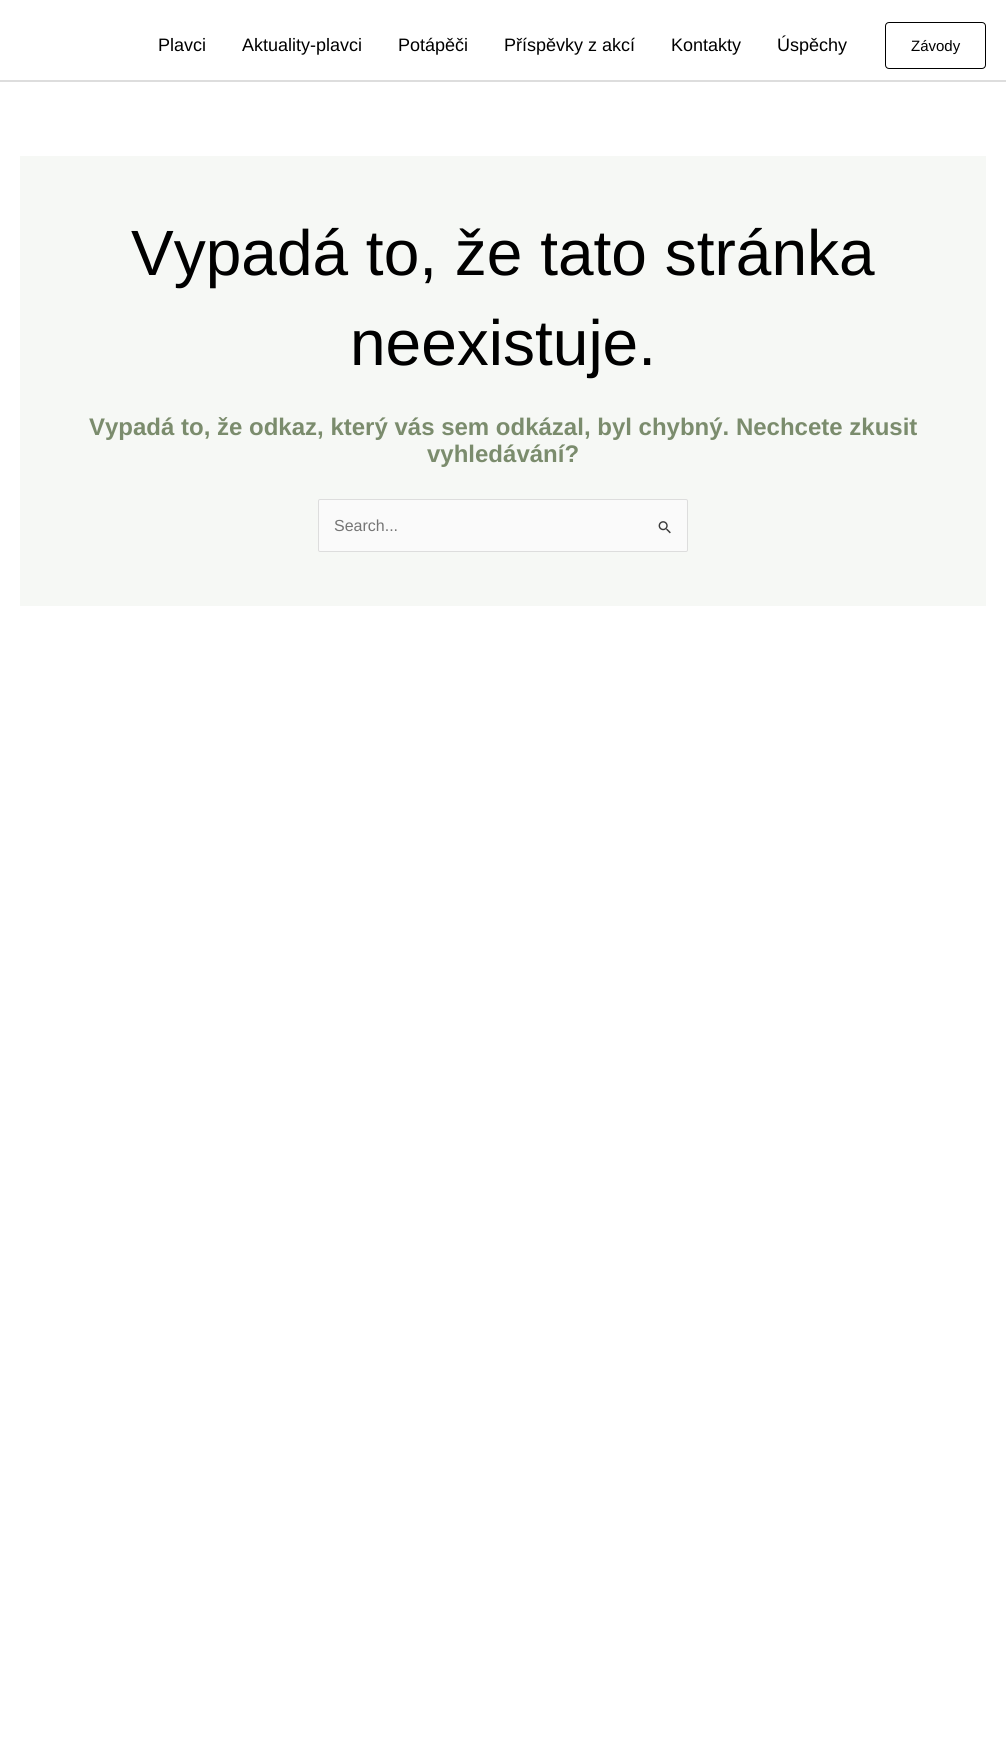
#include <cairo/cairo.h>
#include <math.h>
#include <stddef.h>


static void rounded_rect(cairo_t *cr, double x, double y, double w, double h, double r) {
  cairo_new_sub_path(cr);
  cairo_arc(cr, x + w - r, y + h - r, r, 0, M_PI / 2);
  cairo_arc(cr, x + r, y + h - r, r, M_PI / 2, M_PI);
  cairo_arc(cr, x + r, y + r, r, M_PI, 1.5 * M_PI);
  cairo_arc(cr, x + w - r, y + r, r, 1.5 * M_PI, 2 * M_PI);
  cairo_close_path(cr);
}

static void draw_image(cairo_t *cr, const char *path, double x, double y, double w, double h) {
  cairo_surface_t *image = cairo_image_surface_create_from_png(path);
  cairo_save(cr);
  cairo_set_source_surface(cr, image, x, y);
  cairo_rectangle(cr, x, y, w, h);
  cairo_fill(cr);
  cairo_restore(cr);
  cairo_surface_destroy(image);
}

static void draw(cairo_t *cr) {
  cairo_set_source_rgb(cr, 1, 1, 1);
  cairo_paint(cr);
  cairo_set_source_rgb(cr, 221 / 255.0, 221 / 255.0, 221 / 255.0);
  cairo_rectangle(cr, 0, 80, 1006, 2);
  cairo_fill(cr);
  rounded_rect(cr, 885.5, 22.5, 100, 46, 3.5);
  cairo_set_source_rgb(cr, 0, 0, 0);
  cairo_set_line_width(cr, 1);
  cairo_stroke(cr);
  cairo_set_source_rgb(cr, 246 / 255.0, 248 / 255.0, 245 / 255.0);
  cairo_rectangle(cr, 20, 156, 966, 450);
  cairo_fill(cr);
  cairo_set_source_rgb(cr, 250 / 255.0, 250 / 255.0, 250 / 255.0);
  rounded_rect(cr, 318.5, 499.5, 369, 52, 1.5);
  cairo_fill_preserve(cr);
  cairo_set_source_rgb(cr, 221 / 255.0, 221 / 255.0, 221 / 255.0);
  cairo_stroke(cr);
  draw_image(cr, "images/1.png", 658, 521, 13, 13);
  cairo_select_font_face(cr, "Liberation Sans", CAIRO_FONT_SLANT_NORMAL, CAIRO_FONT_WEIGHT_NORMAL);
  cairo_set_font_size(cr, 18);
  cairo_set_source_rgb(cr, 0, 0, 0);
  cairo_move_to(cr, 158, 51);
  cairo_show_text(cr, "Plavci");
  cairo_move_to(cr, 242, 51);
  cairo_show_text(cr, "Aktuality-plavci");
  cairo_move_to(cr, 398, 51);
  cairo_show_text(cr, "Potápěči");
  cairo_move_to(cr, 504, 51);
  cairo_show_text(cr, "Příspěvky z akcí");
  cairo_move_to(cr, 671, 51);
  cairo_show_text(cr, "Kontakty");
  cairo_move_to(cr, 777, 51);
  cairo_show_text(cr, "Úspěchy");
  cairo_set_font_size(cr, 15);
  cairo_move_to(cr, 911, 51);
  cairo_show_text(cr, "Závody");
  cairo_set_font_size(cr, 64);
  cairo_move_to(cr, 131, 275);
  cairo_show_text(cr, "Vypadá to, že tato stránka");
  cairo_move_to(cr, 350, 365);
  cairo_show_text(cr, "neexistuje.");
  cairo_select_font_face(cr, "Liberation Sans", CAIRO_FONT_SLANT_NORMAL, CAIRO_FONT_WEIGHT_BOLD);
  cairo_set_font_size(cr, 24);
  cairo_set_source_rgb(cr, 123 / 255.0, 140 / 255.0, 109 / 255.0);
  cairo_move_to(cr, 89, 435);
  cairo_show_text(cr, "Vypadá to, že odkaz, který vás sem odkázal, byl chybný. Nechcete zkusit");
  cairo_move_to(cr, 427, 462);
  cairo_show_text(cr, "vyhledávání?");
  cairo_select_font_face(cr, "Liberation Sans", CAIRO_FONT_SLANT_NORMAL, CAIRO_FONT_WEIGHT_NORMAL);
  cairo_set_font_size(cr, 16);
  cairo_set_source_rgb(cr, 117 / 255.0, 117 / 255.0, 117 / 255.0);
  cairo_move_to(cr, 334, 531);
  cairo_show_text(cr, "Search...");
}

int main(void) {
  cairo_surface_t *surface = cairo_image_surface_create(CAIRO_FORMAT_RGB24, 1006, 1756);
  cairo_t *cr = cairo_create(surface);
  cairo_font_options_t *options = cairo_font_options_create();
  cairo_font_options_set_hint_metrics(options, CAIRO_HINT_METRICS_OFF);
  cairo_font_options_set_hint_style(options, CAIRO_HINT_STYLE_NONE);
  cairo_set_font_options(cr, options);
  cairo_set_miter_limit(cr, 4);
  draw(cr);
  cairo_surface_write_to_png(surface, "out.png");
  cairo_font_options_destroy(options);
  cairo_destroy(cr);
  cairo_surface_destroy(surface);
  return 0;
}
